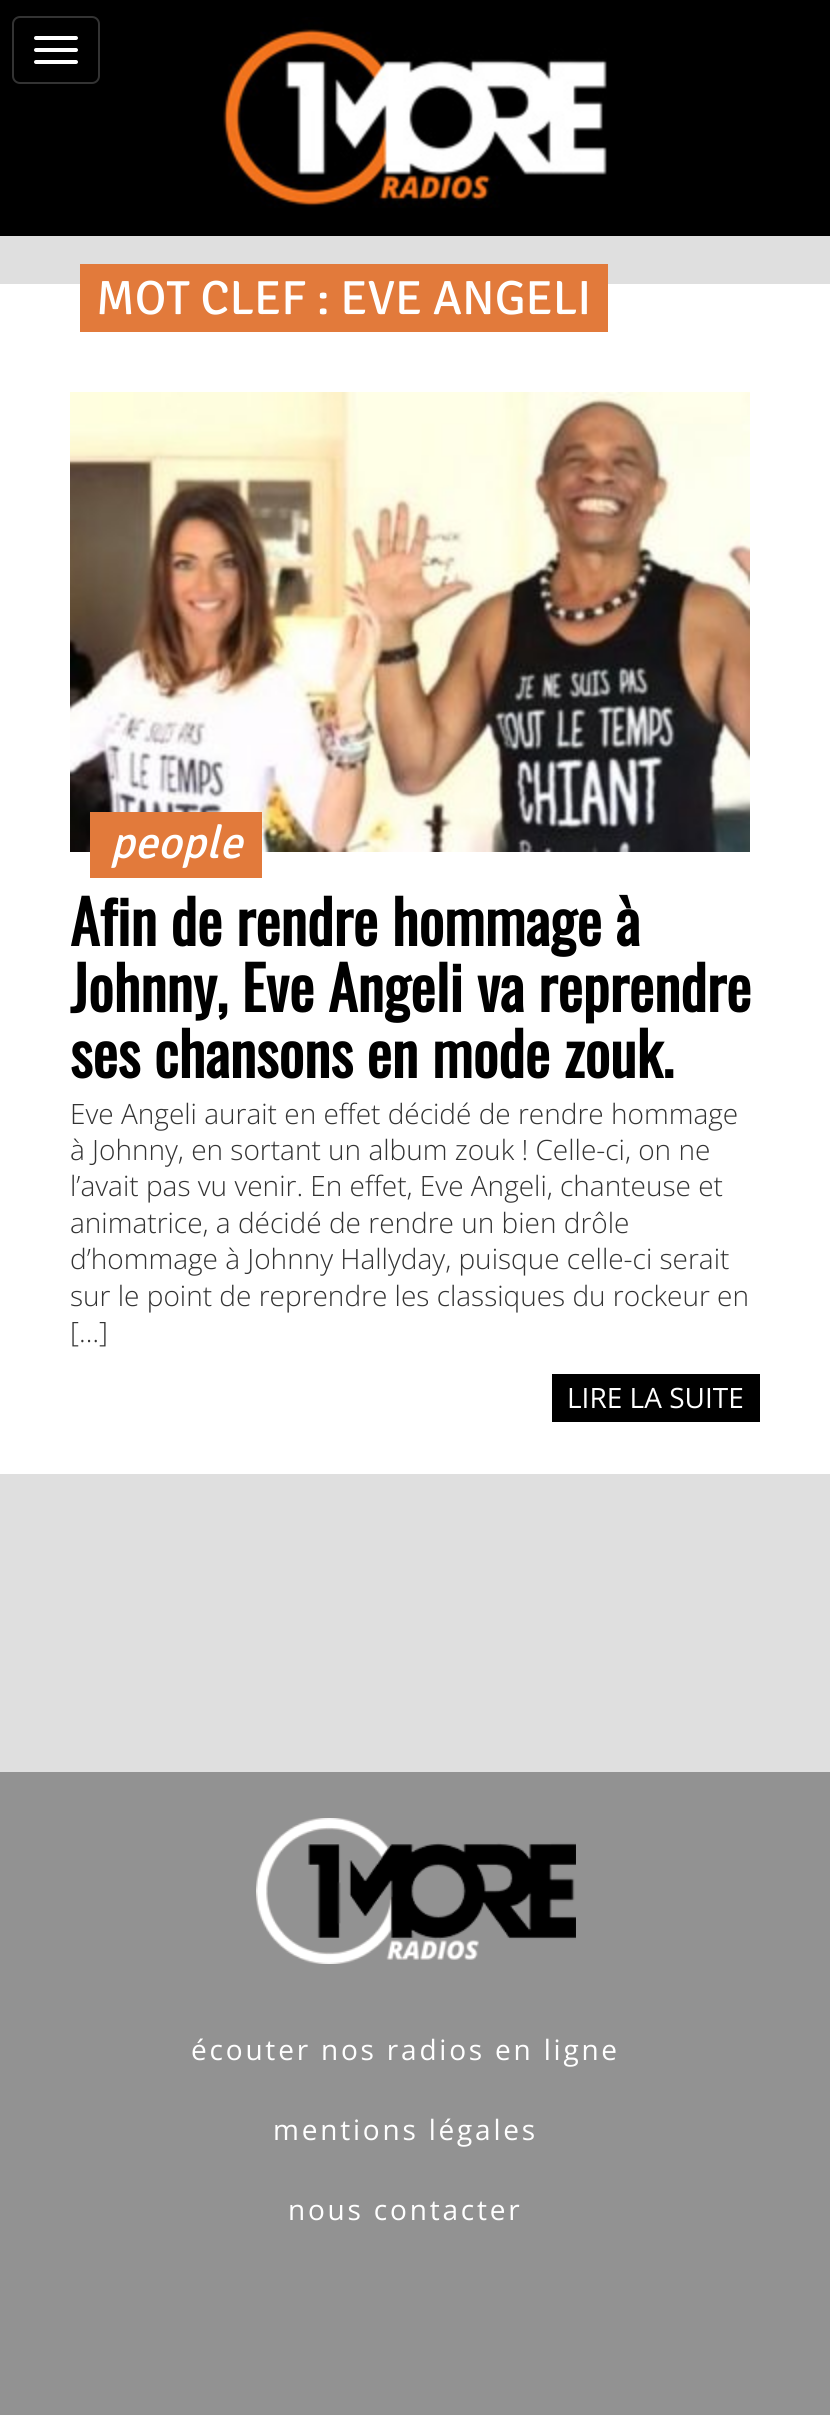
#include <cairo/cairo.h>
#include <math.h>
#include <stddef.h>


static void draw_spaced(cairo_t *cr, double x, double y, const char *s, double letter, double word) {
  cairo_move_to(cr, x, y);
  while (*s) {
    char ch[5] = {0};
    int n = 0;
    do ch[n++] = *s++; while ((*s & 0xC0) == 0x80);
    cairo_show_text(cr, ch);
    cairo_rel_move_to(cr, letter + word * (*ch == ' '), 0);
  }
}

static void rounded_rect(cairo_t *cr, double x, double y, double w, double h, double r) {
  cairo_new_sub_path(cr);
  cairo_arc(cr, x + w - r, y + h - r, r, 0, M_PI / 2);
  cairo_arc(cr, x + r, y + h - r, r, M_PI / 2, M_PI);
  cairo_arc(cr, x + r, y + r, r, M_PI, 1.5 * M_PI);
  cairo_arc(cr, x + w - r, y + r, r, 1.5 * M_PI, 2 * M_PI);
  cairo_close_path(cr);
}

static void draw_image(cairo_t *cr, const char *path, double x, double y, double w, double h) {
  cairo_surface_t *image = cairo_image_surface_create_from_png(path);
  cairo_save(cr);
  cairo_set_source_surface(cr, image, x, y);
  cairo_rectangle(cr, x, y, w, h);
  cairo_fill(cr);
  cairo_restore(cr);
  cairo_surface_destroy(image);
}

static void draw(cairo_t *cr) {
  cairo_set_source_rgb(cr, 223 / 255.0, 223 / 255.0, 223 / 255.0);
  cairo_paint(cr);
  cairo_set_source_rgb(cr, 0, 0, 0);
  cairo_rectangle(cr, 0, 0, 830, 236);
  cairo_fill(cr);
  rounded_rect(cr, 13, 17, 86, 66, 7);
  cairo_set_source_rgb(cr, 51 / 255.0, 51 / 255.0, 51 / 255.0);
  cairo_stroke(cr);
  cairo_set_source_rgb(cr, 1, 1, 1);
  rounded_rect(cr, 34, 36, 44, 4, 2);
  cairo_fill(cr);
  rounded_rect(cr, 34, 48, 44, 4, 2);
  cairo_fill(cr);
  rounded_rect(cr, 34, 60, 44, 4, 2);
  cairo_fill(cr);
  draw_image(cr, "images/1.png", 223, 17, 384, 191);
  cairo_rectangle(cr, 0, 284, 830, 1190);
  cairo_fill(cr);
  cairo_set_source_rgb(cr, 226 / 255.0, 122 / 255.0, 59 / 255.0);
  cairo_rectangle(cr, 80, 264, 528, 68);
  cairo_fill(cr);
  draw_image(cr, "images/2.png", 70, 392, 680, 460);
  cairo_rectangle(cr, 90, 812, 172, 66);
  cairo_fill(cr);
  cairo_set_source_rgb(cr, 0, 0, 0);
  cairo_rectangle(cr, 552, 1374, 208, 48);
  cairo_fill(cr);
  cairo_set_source_rgb(cr, 146 / 255.0, 146 / 255.0, 146 / 255.0);
  cairo_rectangle(cr, 0, 1772, 830, 643);
  cairo_fill(cr);
  draw_image(cr, "images/3.png", 256, 1818, 320, 146);
  cairo_select_font_face(cr, "Signika Light", CAIRO_FONT_SLANT_NORMAL, CAIRO_FONT_WEIGHT_NORMAL);
  cairo_set_font_size(cr, 48);
  cairo_set_source_rgb(cr, 1, 1, 1);
  cairo_move_to(cr, 96, 314);
  cairo_show_text(cr, "MOT CLEF : EVE ANGELI");
  cairo_select_font_face(cr, "Signika Light", CAIRO_FONT_SLANT_ITALIC, CAIRO_FONT_WEIGHT_NORMAL);
  cairo_set_font_size(cr, 46);
  cairo_move_to(cr, 110, 858);
  cairo_show_text(cr, "people");
  cairo_select_font_face(cr, "Oswald", CAIRO_FONT_SLANT_NORMAL, CAIRO_FONT_WEIGHT_BOLD);
  cairo_set_font_size(cr, 60);
  cairo_set_source_rgb(cr, 0, 0, 0);
  cairo_move_to(cr, 70, 946);
  cairo_show_text(cr, "Afin de rendre hommage à");
  cairo_move_to(cr, 70, 1012);
  cairo_show_text(cr, "Johnny, Eve Angeli va reprendre");
  cairo_move_to(cr, 70, 1078);
  cairo_show_text(cr, "ses chansons en mode zouk.");
  cairo_select_font_face(cr, "Open Sans Light", CAIRO_FONT_SLANT_NORMAL, CAIRO_FONT_WEIGHT_NORMAL);
  cairo_set_font_size(cr, 28);
  cairo_set_source_rgb(cr, 51 / 255.0, 51 / 255.0, 51 / 255.0);
  cairo_move_to(cr, 70, 1124);
  cairo_show_text(cr, "Eve Angeli aurait en effet décidé de rendre hommage");
  cairo_move_to(cr, 70, 1160);
  cairo_show_text(cr, "à Johnny, en sortant un album zouk ! Celle-ci, on ne");
  cairo_move_to(cr, 70, 1196);
  cairo_show_text(cr, "l’avait pas vu venir. En effet, Eve Angeli, chanteuse et");
  cairo_move_to(cr, 70, 1233);
  cairo_show_text(cr, "animatrice, a décidé de rendre un bien drôle");
  cairo_move_to(cr, 70, 1269);
  cairo_show_text(cr, "d’hommage à Johnny Hallyday, puisque celle-ci serait");
  cairo_move_to(cr, 70, 1306);
  cairo_show_text(cr, "sur le point de reprendre les classiques du rockeur en");
  cairo_move_to(cr, 70, 1342);
  cairo_show_text(cr, "[…]");
  cairo_select_font_face(cr, "Open Sans", CAIRO_FONT_SLANT_NORMAL, CAIRO_FONT_WEIGHT_NORMAL);
  cairo_set_source_rgb(cr, 1, 1, 1);
  cairo_move_to(cr, 567, 1408);
  cairo_show_text(cr, "LIRE LA SUITE");
  draw_spaced(cr, 191, 2060, "écouter nos radios en ligne", 2.8, 0);
  draw_spaced(cr, 273, 2140, "mentions légales", 2.8, 0);
  draw_spaced(cr, 288, 2220, "nous contacter", 2.8, 0);
}

int main(void) {
  cairo_surface_t *surface = cairo_image_surface_create(CAIRO_FORMAT_RGB24, 830, 2415);
  cairo_t *cr = cairo_create(surface);
  cairo_font_options_t *options = cairo_font_options_create();
  cairo_font_options_set_hint_metrics(options, CAIRO_HINT_METRICS_OFF);
  cairo_font_options_set_hint_style(options, CAIRO_HINT_STYLE_NONE);
  cairo_set_font_options(cr, options);
  cairo_set_miter_limit(cr, 4);
  draw(cr);
  cairo_surface_write_to_png(surface, "out.png");
  cairo_font_options_destroy(options);
  cairo_destroy(cr);
  cairo_surface_destroy(surface);
  return 0;
}
